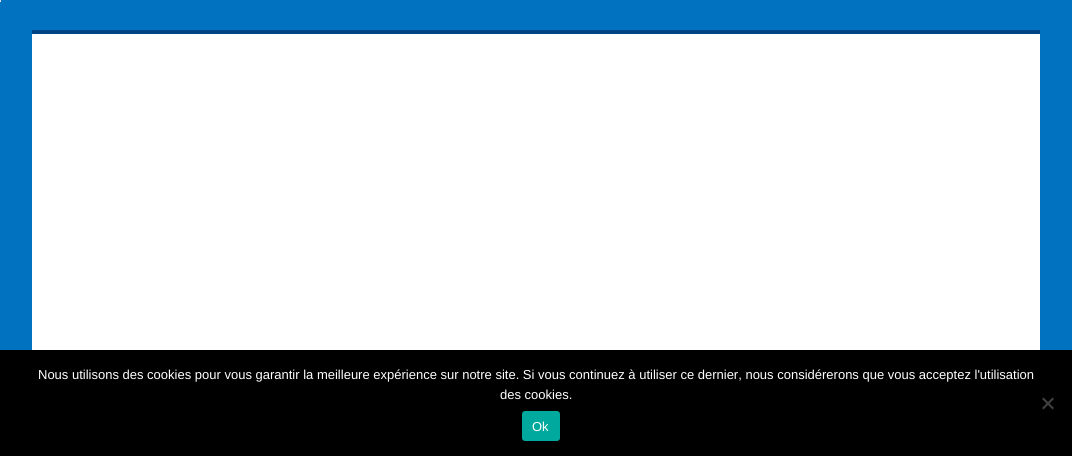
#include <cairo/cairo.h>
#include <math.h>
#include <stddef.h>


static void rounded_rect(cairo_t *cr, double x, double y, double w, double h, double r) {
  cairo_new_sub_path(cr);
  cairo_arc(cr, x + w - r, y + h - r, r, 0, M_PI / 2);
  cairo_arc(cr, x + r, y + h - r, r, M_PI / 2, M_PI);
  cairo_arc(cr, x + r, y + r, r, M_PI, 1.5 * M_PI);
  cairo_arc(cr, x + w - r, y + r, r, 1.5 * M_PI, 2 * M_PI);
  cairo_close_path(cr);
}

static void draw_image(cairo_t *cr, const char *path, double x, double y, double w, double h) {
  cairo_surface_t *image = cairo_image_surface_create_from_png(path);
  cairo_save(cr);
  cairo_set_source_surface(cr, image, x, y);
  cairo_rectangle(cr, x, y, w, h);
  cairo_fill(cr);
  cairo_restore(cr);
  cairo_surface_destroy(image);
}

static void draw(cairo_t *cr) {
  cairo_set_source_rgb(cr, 0, 114 / 255.0, 191 / 255.0);
  cairo_paint(cr);
  draw_image(cr, "images/1.png", 0, 0, 1, 2);
  cairo_set_source_rgb(cr, 1, 1, 1);
  cairo_rectangle(cr, 32, 34, 1008, 316);
  cairo_fill(cr);
  cairo_set_source_rgb(cr, 0, 68 / 255.0, 136 / 255.0);
  cairo_rectangle(cr, 32, 30, 1008, 4);
  cairo_fill(cr);
  cairo_set_source_rgb(cr, 0, 0, 0);
  cairo_rectangle(cr, 0, 350, 1072, 106);
  cairo_fill(cr);
  cairo_set_source_rgb(cr, 64 / 255.0, 64 / 255.0, 64 / 255.0);
  cairo_new_path(cr);
  cairo_move_to(cr, 1052.5, 397.5);
  cairo_line_to(cr, 1054, 399);
  cairo_line_to(cr, 1043.5, 409.5);
  cairo_line_to(cr, 1042, 408);
  cairo_close_path(cr);
  cairo_fill(cr);
  cairo_new_path(cr);
  cairo_move_to(cr, 1042, 399);
  cairo_line_to(cr, 1043.5, 397.5);
  cairo_line_to(cr, 1054, 408);
  cairo_line_to(cr, 1052.5, 409.5);
  cairo_close_path(cr);
  cairo_fill(cr);
  cairo_set_source_rgb(cr, 0, 169 / 255.0, 157 / 255.0);
  rounded_rect(cr, 522, 411, 38, 30, 3);
  cairo_fill(cr);
  cairo_select_font_face(cr, "Liberation Sans", CAIRO_FONT_SLANT_NORMAL, CAIRO_FONT_WEIGHT_NORMAL);
  cairo_set_font_size(cr, 13);
  cairo_set_source_rgb(cr, 1, 1, 1);
  cairo_move_to(cr, 38, 379);
  cairo_show_text(cr, "Nous utilisons des cookies pour vous garantir la meilleure expérience sur notre site. Si vous continuez à utiliser ce dernier, nous considérerons que vous acceptez l'utilisation");
  cairo_move_to(cr, 500, 399);
  cairo_show_text(cr, "des cookies.");
  cairo_move_to(cr, 532, 431);
  cairo_show_text(cr, "Ok");
}

int main(void) {
  cairo_surface_t *surface = cairo_image_surface_create(CAIRO_FORMAT_RGB24, 1072, 456);
  cairo_t *cr = cairo_create(surface);
  cairo_font_options_t *options = cairo_font_options_create();
  cairo_font_options_set_hint_metrics(options, CAIRO_HINT_METRICS_OFF);
  cairo_font_options_set_hint_style(options, CAIRO_HINT_STYLE_NONE);
  cairo_set_font_options(cr, options);
  cairo_set_miter_limit(cr, 4);
  draw(cr);
  cairo_surface_write_to_png(surface, "out.png");
  cairo_font_options_destroy(options);
  cairo_destroy(cr);
  cairo_surface_destroy(surface);
  return 0;
}
